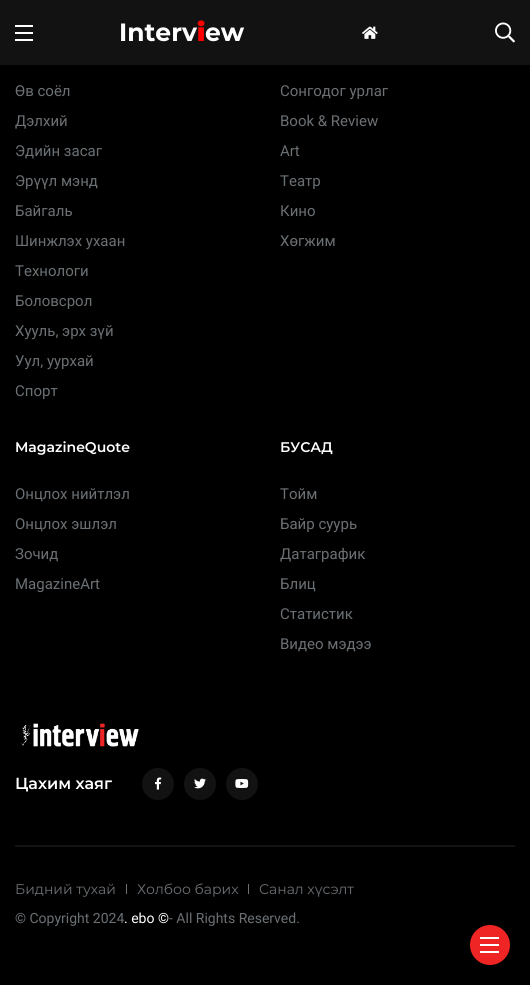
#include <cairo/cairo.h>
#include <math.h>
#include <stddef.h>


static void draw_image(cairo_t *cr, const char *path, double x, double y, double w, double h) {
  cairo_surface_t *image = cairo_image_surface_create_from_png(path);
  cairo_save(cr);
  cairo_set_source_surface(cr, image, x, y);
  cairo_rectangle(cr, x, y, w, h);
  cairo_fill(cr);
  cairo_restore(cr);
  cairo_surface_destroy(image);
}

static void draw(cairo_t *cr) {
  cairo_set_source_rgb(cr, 0, 0, 0);
  cairo_paint(cr);
  cairo_set_source_rgb(cr, 18 / 255.0, 18 / 255.0, 19 / 255.0);
  cairo_rectangle(cr, 0, 0, 530, 65);
  cairo_fill(cr);
  cairo_set_source_rgb(cr, 1, 1, 1);
  cairo_rectangle(cr, 15, 25, 18, 2);
  cairo_fill(cr);
  cairo_rectangle(cr, 15, 32, 18, 2);
  cairo_fill(cr);
  cairo_rectangle(cr, 15, 39, 18, 2);
  cairo_fill(cr);
  draw_image(cr, "images/1.png", 362, 26, 16, 13);
  draw_image(cr, "images/2.png", 495, 22, 20, 21);
  cairo_set_source_rgb(cr, 238 / 255.0, 37 / 255.0, 36 / 255.0);
  cairo_arc(cr, 490, 945, 20, 0, 2 * M_PI);
  cairo_fill(cr);
  cairo_set_source_rgb(cr, 1, 1, 1);
  cairo_rectangle(cr, 480, 937, 19, 2);
  cairo_fill(cr);
  cairo_rectangle(cr, 480, 944, 19, 2);
  cairo_fill(cr);
  cairo_rectangle(cr, 480, 951, 19, 2);
  cairo_fill(cr);
  draw_image(cr, "images/3.png", 21, 723, 118, 24);
  cairo_set_source_rgb(cr, 18 / 255.0, 18 / 255.0, 19 / 255.0);
  cairo_arc(cr, 158, 784, 16, 0, 2 * M_PI);
  cairo_fill(cr);
  draw_image(cr, "images/4.png", 155, 777, 7, 13);
  cairo_arc(cr, 200, 784, 16, 0, 2 * M_PI);
  cairo_fill(cr);
  draw_image(cr, "images/5.png", 194, 778, 12, 11);
  cairo_arc(cr, 242, 784, 16, 0, 2 * M_PI);
  cairo_fill(cr);
  draw_image(cr, "images/6.png", 235, 779, 14, 9);
  cairo_rectangle(cr, 15, 845, 500, 2);
  cairo_fill(cr);
  cairo_set_source_rgb(cr, 107 / 255.0, 112 / 255.0, 116 / 255.0);
  cairo_rectangle(cr, 126, 884, 1, 10);
  cairo_fill(cr);
  cairo_rectangle(cr, 248, 884, 1, 10);
  cairo_fill(cr);
  cairo_select_font_face(cr, "Montserrat", CAIRO_FONT_SLANT_NORMAL, CAIRO_FONT_WEIGHT_BOLD);
  cairo_set_font_size(cr, 25);
  cairo_set_source_rgb(cr, 1, 1, 1);
  cairo_move_to(cr, 119, 41);
  cairo_show_text(cr, "Interv");
  cairo_select_font_face(cr, "Montserrat Black", CAIRO_FONT_SLANT_NORMAL, CAIRO_FONT_WEIGHT_NORMAL);
  cairo_set_source_rgb(cr, 1, 0, 0);
  cairo_move_to(cr, 197, 41);
  cairo_show_text(cr, "i");
  cairo_select_font_face(cr, "Montserrat", CAIRO_FONT_SLANT_NORMAL, CAIRO_FONT_WEIGHT_BOLD);
  cairo_set_source_rgb(cr, 1, 1, 1);
  cairo_move_to(cr, 205, 41);
  cairo_show_text(cr, "ew");
  cairo_select_font_face(cr, "Roboto", CAIRO_FONT_SLANT_NORMAL, CAIRO_FONT_WEIGHT_NORMAL);
  cairo_set_font_size(cr, 15);
  cairo_set_source_rgb(cr, 107 / 255.0, 112 / 255.0, 116 / 255.0);
  cairo_move_to(cr, 15, 96);
  cairo_show_text(cr, "Өв соёл");
  cairo_move_to(cr, 15, 126);
  cairo_show_text(cr, "Дэлхий");
  cairo_move_to(cr, 15, 156);
  cairo_show_text(cr, "Эдийн засаг");
  cairo_move_to(cr, 15, 186);
  cairo_show_text(cr, "Эрүүл мэнд");
  cairo_move_to(cr, 15, 216);
  cairo_show_text(cr, "Байгаль");
  cairo_move_to(cr, 15, 246);
  cairo_show_text(cr, "Шинжлэх ухаан");
  cairo_move_to(cr, 15, 276);
  cairo_show_text(cr, "Технологи");
  cairo_move_to(cr, 15, 306);
  cairo_show_text(cr, "Боловсрол");
  cairo_move_to(cr, 15, 336);
  cairo_show_text(cr, "Хууль, эрх зүй");
  cairo_move_to(cr, 15, 366);
  cairo_show_text(cr, "Уул, уурхай");
  cairo_move_to(cr, 15, 396);
  cairo_show_text(cr, "Спорт");
  cairo_move_to(cr, 280, 96);
  cairo_show_text(cr, "Сонгодог урлаг");
  cairo_move_to(cr, 280, 126);
  cairo_show_text(cr, "Book & Review");
  cairo_move_to(cr, 280, 156);
  cairo_show_text(cr, "Art");
  cairo_move_to(cr, 280, 186);
  cairo_show_text(cr, "Театр");
  cairo_move_to(cr, 280, 216);
  cairo_show_text(cr, "Кино");
  cairo_move_to(cr, 280, 246);
  cairo_show_text(cr, "Хөгжим");
  cairo_select_font_face(cr, "Montserrat SemiBold", CAIRO_FONT_SLANT_NORMAL, CAIRO_FONT_WEIGHT_NORMAL);
  cairo_set_font_size(cr, 14);
  cairo_set_source_rgb(cr, 1, 1, 1);
  cairo_move_to(cr, 15, 452);
  cairo_show_text(cr, "MagazineQuote");
  cairo_select_font_face(cr, "Roboto", CAIRO_FONT_SLANT_NORMAL, CAIRO_FONT_WEIGHT_NORMAL);
  cairo_set_font_size(cr, 15);
  cairo_set_source_rgb(cr, 107 / 255.0, 112 / 255.0, 116 / 255.0);
  cairo_move_to(cr, 15, 499);
  cairo_show_text(cr, "Онцлох нийтлэл");
  cairo_move_to(cr, 15, 529);
  cairo_show_text(cr, "Онцлох эшлэл");
  cairo_move_to(cr, 15, 559);
  cairo_show_text(cr, "Зочид");
  cairo_move_to(cr, 15, 589);
  cairo_show_text(cr, "MagazineArt");
  cairo_select_font_face(cr, "Montserrat SemiBold", CAIRO_FONT_SLANT_NORMAL, CAIRO_FONT_WEIGHT_NORMAL);
  cairo_set_font_size(cr, 14);
  cairo_set_source_rgb(cr, 1, 1, 1);
  cairo_move_to(cr, 280, 452);
  cairo_show_text(cr, "БУСАД");
  cairo_select_font_face(cr, "Roboto", CAIRO_FONT_SLANT_NORMAL, CAIRO_FONT_WEIGHT_NORMAL);
  cairo_set_font_size(cr, 15);
  cairo_set_source_rgb(cr, 107 / 255.0, 112 / 255.0, 116 / 255.0);
  cairo_move_to(cr, 280, 499);
  cairo_show_text(cr, "Тойм");
  cairo_move_to(cr, 280, 529);
  cairo_show_text(cr, "Байр суурь");
  cairo_move_to(cr, 280, 559);
  cairo_show_text(cr, "Датаграфик");
  cairo_move_to(cr, 280, 589);
  cairo_show_text(cr, "Блиц");
  cairo_move_to(cr, 280, 619);
  cairo_show_text(cr, "Статистик");
  cairo_move_to(cr, 280, 649);
  cairo_show_text(cr, "Видео мэдээ");
  cairo_select_font_face(cr, "Montserrat SemiBold", CAIRO_FONT_SLANT_NORMAL, CAIRO_FONT_WEIGHT_NORMAL);
  cairo_set_font_size(cr, 16);
  cairo_set_source_rgb(cr, 1, 1, 1);
  cairo_move_to(cr, 15, 789);
  cairo_show_text(cr, "Цахим хаяг");
  cairo_select_font_face(cr, "Montserrat", CAIRO_FONT_SLANT_NORMAL, CAIRO_FONT_WEIGHT_NORMAL);
  cairo_set_font_size(cr, 14);
  cairo_set_source_rgb(cr, 107 / 255.0, 112 / 255.0, 116 / 255.0);
  cairo_move_to(cr, 15, 894);
  cairo_show_text(cr, "Бидний тухай");
  cairo_move_to(cr, 137, 894);
  cairo_show_text(cr, "Холбоо барих");
  cairo_move_to(cr, 259, 894);
  cairo_show_text(cr, "Санал хүсэлт");
  cairo_select_font_face(cr, "Roboto", CAIRO_FONT_SLANT_NORMAL, CAIRO_FONT_WEIGHT_NORMAL);
  cairo_move_to(cr, 15, 923);
  cairo_show_text(cr, "© Copyright 2024");
  cairo_set_source_rgb(cr, 1, 1, 1);
  cairo_move_to(cr, 124, 923);
  cairo_show_text(cr, ". ebo ©");
  cairo_set_source_rgb(cr, 107 / 255.0, 112 / 255.0, 116 / 255.0);
  cairo_move_to(cr, 169, 923);
  cairo_show_text(cr, "- All Rights Reserved.");
}

int main(void) {
  cairo_surface_t *surface = cairo_image_surface_create(CAIRO_FORMAT_RGB24, 530, 985);
  cairo_t *cr = cairo_create(surface);
  cairo_font_options_t *options = cairo_font_options_create();
  cairo_font_options_set_hint_metrics(options, CAIRO_HINT_METRICS_OFF);
  cairo_font_options_set_hint_style(options, CAIRO_HINT_STYLE_NONE);
  cairo_set_font_options(cr, options);
  cairo_set_miter_limit(cr, 4);
  draw(cr);
  cairo_surface_write_to_png(surface, "out.png");
  cairo_font_options_destroy(options);
  cairo_destroy(cr);
  cairo_surface_destroy(surface);
  return 0;
}
